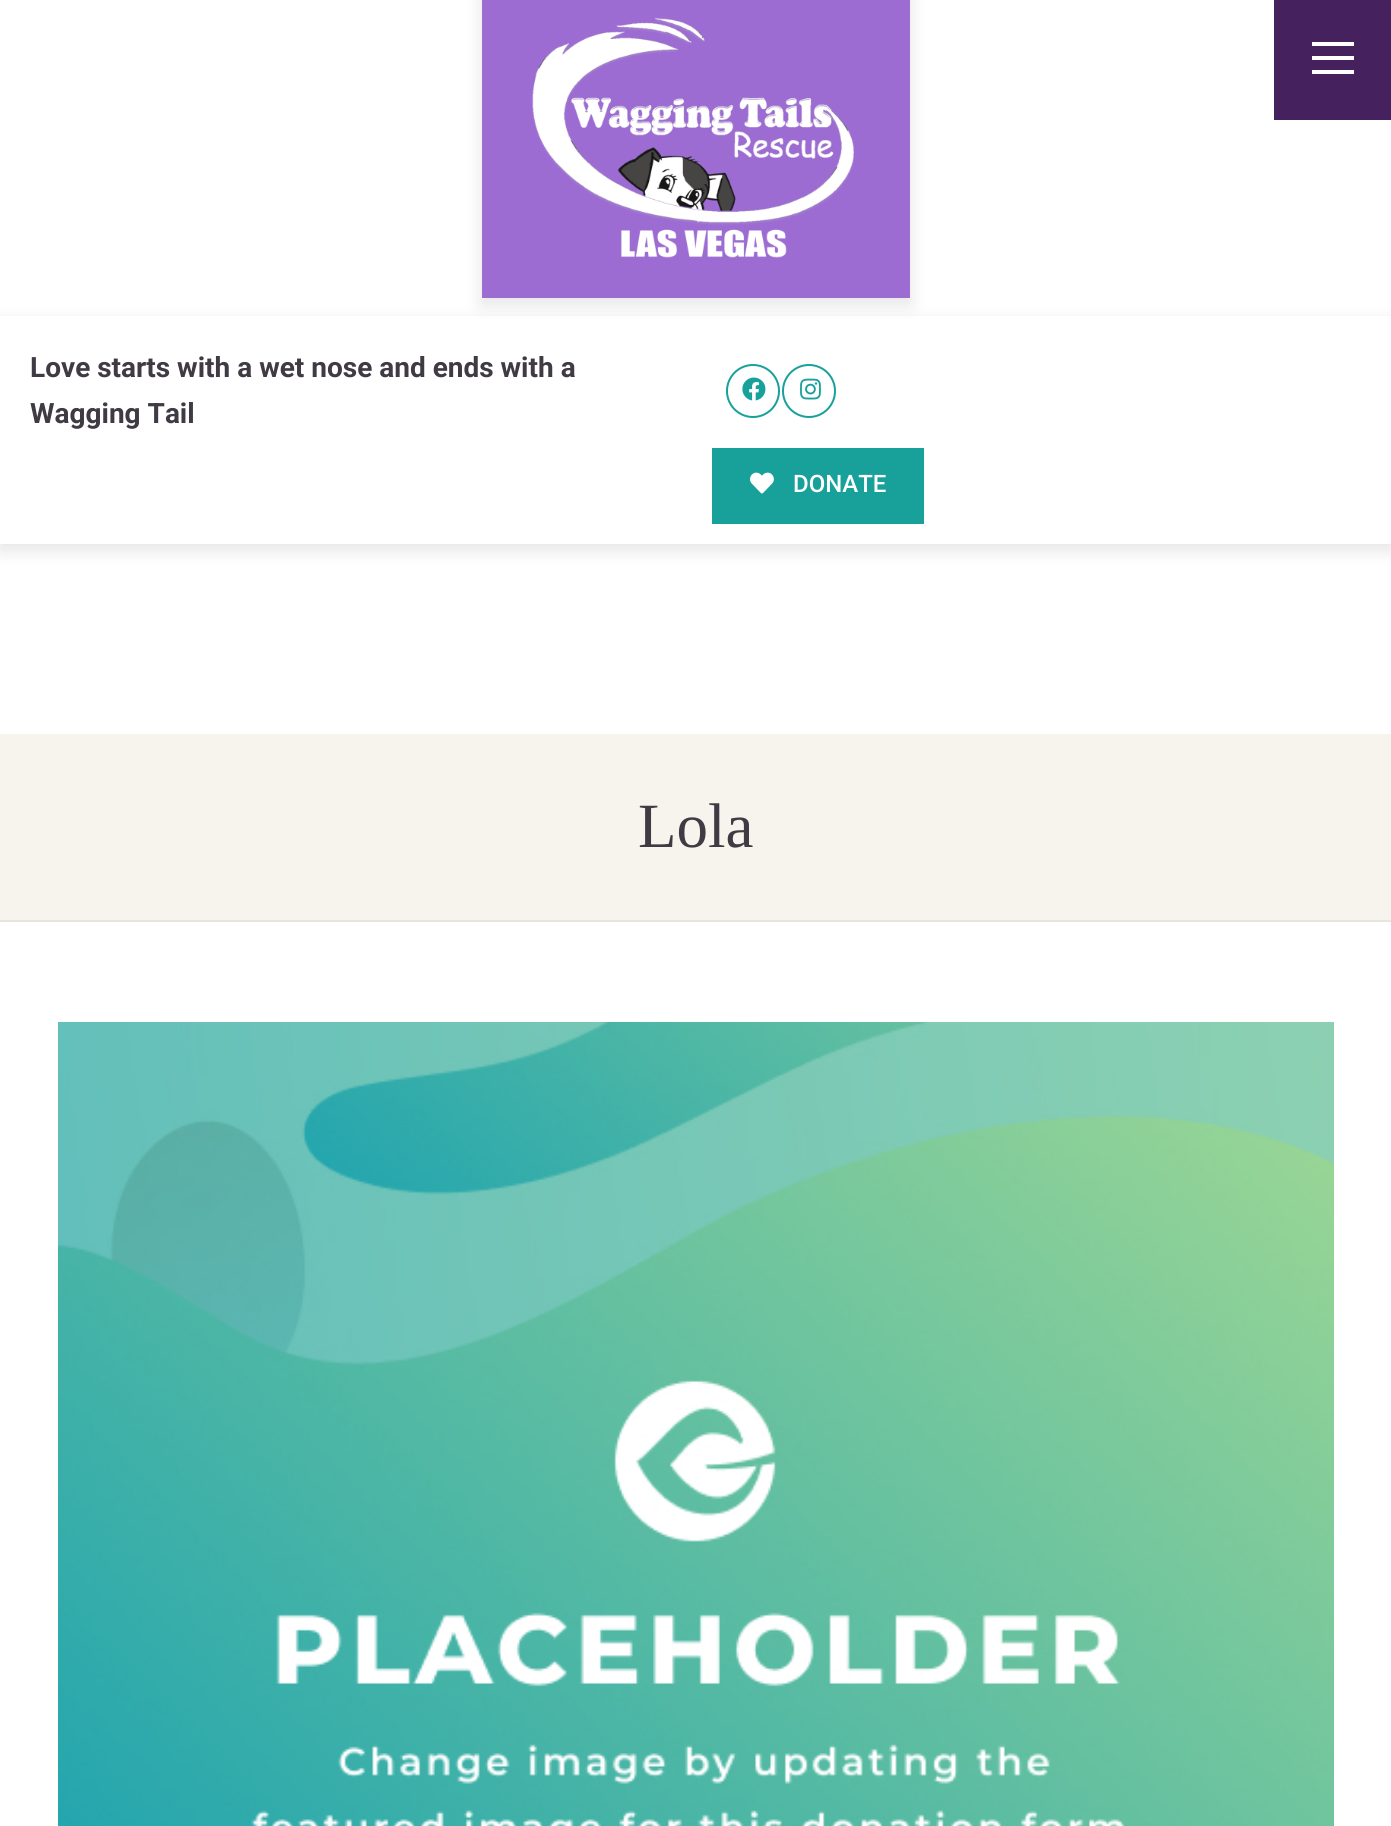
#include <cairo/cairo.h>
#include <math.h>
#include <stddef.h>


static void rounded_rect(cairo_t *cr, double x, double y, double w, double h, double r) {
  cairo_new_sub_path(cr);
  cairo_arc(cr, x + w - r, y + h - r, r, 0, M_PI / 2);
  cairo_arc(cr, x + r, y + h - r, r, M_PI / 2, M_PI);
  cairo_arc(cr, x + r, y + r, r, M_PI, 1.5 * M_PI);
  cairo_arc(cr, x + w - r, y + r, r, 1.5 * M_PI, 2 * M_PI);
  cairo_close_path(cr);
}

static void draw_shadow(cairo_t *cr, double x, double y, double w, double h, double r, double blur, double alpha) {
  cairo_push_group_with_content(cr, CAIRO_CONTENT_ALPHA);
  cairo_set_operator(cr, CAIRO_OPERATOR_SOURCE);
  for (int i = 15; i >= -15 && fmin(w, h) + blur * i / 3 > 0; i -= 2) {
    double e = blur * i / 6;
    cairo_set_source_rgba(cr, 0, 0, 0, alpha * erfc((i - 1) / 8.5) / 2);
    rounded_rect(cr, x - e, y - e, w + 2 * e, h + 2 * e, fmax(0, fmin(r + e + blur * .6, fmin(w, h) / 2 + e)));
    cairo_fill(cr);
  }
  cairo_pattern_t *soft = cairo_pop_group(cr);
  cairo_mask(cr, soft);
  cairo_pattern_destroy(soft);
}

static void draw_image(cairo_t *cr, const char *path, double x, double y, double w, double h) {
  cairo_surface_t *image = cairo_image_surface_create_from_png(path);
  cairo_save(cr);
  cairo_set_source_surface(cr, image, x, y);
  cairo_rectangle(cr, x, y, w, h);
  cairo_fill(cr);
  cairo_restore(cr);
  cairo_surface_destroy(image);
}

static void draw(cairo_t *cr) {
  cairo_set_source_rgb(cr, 1, 1, 1);
  cairo_paint(cr);
  cairo_set_source_rgb(cr, 0, 0, 0);
  draw_shadow(cr, 482, -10, 428, 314, 0, 9, 0.11);
  cairo_save(cr);
  cairo_set_fill_rule(cr, CAIRO_FILL_RULE_EVEN_ODD);
  cairo_new_path(cr);
  cairo_move_to(cr, 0, 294);
  cairo_line_to(cr, 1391, 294);
  cairo_line_to(cr, 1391, 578);
  cairo_line_to(cr, 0, 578);
  cairo_close_path(cr);
  cairo_move_to(cr, 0, 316);
  cairo_line_to(cr, 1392, 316);
  cairo_line_to(cr, 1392, 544);
  cairo_line_to(cr, 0, 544);
  cairo_close_path(cr);
  cairo_clip(cr);
  draw_shadow(cr, 0, 322, 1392, 228, 0, 9, 0.11);
  cairo_restore(cr);
  cairo_set_source_rgb(cr, 156 / 255.0, 108 / 255.0, 210 / 255.0);
  cairo_rectangle(cr, 482, 0, 428, 298);
  cairo_fill(cr);
  draw_image(cr, "images/1.png", 532, 17, 322, 241);
  cairo_set_source_rgb(cr, 69 / 255.0, 33 / 255.0, 93 / 255.0);
  cairo_rectangle(cr, 1274, 0, 117, 120);
  cairo_fill(cr);
  cairo_set_source_rgb(cr, 1, 1, 1);
  cairo_rectangle(cr, 1312, 42, 42, 4);
  cairo_fill(cr);
  cairo_rectangle(cr, 1312, 56, 42, 4);
  cairo_fill(cr);
  cairo_rectangle(cr, 1312, 70, 42, 4);
  cairo_fill(cr);
  cairo_arc(cr, 753, 391, 26, 0, 2 * M_PI);
  cairo_set_source_rgb(cr, 24 / 255.0, 161 / 255.0, 155 / 255.0);
  cairo_stroke(cr);
  draw_image(cr, "images/2.png", 742, 377, 24, 24);
  cairo_arc(cr, 809, 391, 26, 0, 2 * M_PI);
  cairo_stroke(cr);
  draw_image(cr, "images/3.png", 800, 378, 21, 22);
  cairo_rectangle(cr, 712, 448, 212, 76);
  cairo_fill(cr);
  draw_image(cr, "images/4.png", 750, 472, 24, 22);
  cairo_set_source_rgb(cr, 246 / 255.0, 244 / 255.0, 236 / 255.0);
  cairo_rectangle(cr, 0, 734, 1391, 186);
  cairo_fill(cr);
  cairo_set_source_rgb(cr, 231 / 255.0, 229 / 255.0, 222 / 255.0);
  cairo_rectangle(cr, 0, 920, 1391, 2);
  cairo_fill(cr);
  draw_image(cr, "images/5.png", 58, 1022, 1276, 804);
  cairo_select_font_face(cr, "Roboto", CAIRO_FONT_SLANT_NORMAL, CAIRO_FONT_WEIGHT_BOLD);
  cairo_set_font_size(cr, 28);
  cairo_set_source_rgb(cr, 63 / 255.0, 58 / 255.0, 67 / 255.0);
  cairo_move_to(cr, 30, 377);
  cairo_show_text(cr, "Love starts with a wet nose and ends with a");
  cairo_move_to(cr, 30, 423);
  cairo_show_text(cr, "Wagging Tail");
  cairo_select_font_face(cr, "Roboto Medium", CAIRO_FONT_SLANT_NORMAL, CAIRO_FONT_WEIGHT_NORMAL);
  cairo_set_font_size(cr, 24);
  cairo_set_source_rgb(cr, 1, 1, 1);
  cairo_move_to(cr, 793, 492);
  cairo_show_text(cr, "DONATE");
  cairo_select_font_face(cr, "Liberation Serif", CAIRO_FONT_SLANT_NORMAL, CAIRO_FONT_WEIGHT_NORMAL);
  cairo_set_font_size(cr, 63);
  cairo_set_source_rgb(cr, 63 / 255.0, 58 / 255.0, 67 / 255.0);
  cairo_move_to(cr, 638, 847);
  cairo_show_text(cr, "Lola");
}

int main(void) {
  cairo_surface_t *surface = cairo_image_surface_create(CAIRO_FORMAT_RGB24, 1391, 1826);
  cairo_t *cr = cairo_create(surface);
  cairo_font_options_t *options = cairo_font_options_create();
  cairo_font_options_set_hint_metrics(options, CAIRO_HINT_METRICS_OFF);
  cairo_font_options_set_hint_style(options, CAIRO_HINT_STYLE_NONE);
  cairo_set_font_options(cr, options);
  cairo_set_miter_limit(cr, 4);
  draw(cr);
  cairo_surface_write_to_png(surface, "out.png");
  cairo_font_options_destroy(options);
  cairo_destroy(cr);
  cairo_surface_destroy(surface);
  return 0;
}
